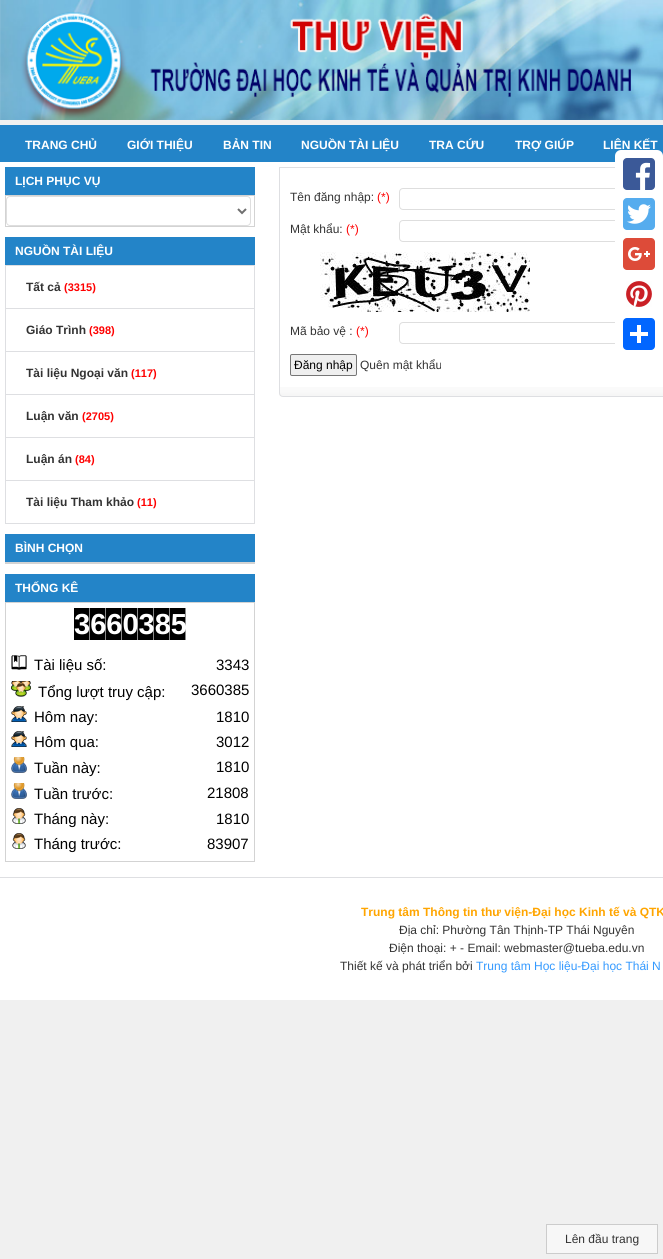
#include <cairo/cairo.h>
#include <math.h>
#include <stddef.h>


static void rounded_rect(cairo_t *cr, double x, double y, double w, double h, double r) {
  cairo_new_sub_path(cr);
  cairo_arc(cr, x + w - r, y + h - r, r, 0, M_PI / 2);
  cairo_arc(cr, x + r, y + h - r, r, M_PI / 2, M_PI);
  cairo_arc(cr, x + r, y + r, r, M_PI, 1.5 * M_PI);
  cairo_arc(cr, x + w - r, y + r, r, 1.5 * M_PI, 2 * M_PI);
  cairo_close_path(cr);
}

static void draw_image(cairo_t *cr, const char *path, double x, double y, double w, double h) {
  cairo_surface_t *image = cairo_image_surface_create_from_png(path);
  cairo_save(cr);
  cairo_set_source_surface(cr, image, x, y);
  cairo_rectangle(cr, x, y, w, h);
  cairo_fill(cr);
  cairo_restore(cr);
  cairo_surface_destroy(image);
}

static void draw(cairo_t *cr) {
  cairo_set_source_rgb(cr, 240 / 255.0, 240 / 255.0, 240 / 255.0);
  cairo_paint(cr);
  draw_image(cr, "images/1.png", 0, 0, 663, 120);
  cairo_set_source_rgb(cr, 35 / 255.0, 132 / 255.0, 200 / 255.0);
  cairo_rectangle(cr, 0, 125, 663, 37);
  cairo_fill(cr);
  cairo_set_source_rgb(cr, 1, 1, 1);
  cairo_rectangle(cr, 0, 162, 663, 715);
  cairo_fill(cr);
  cairo_set_source_rgb(cr, 35 / 255.0, 132 / 255.0, 200 / 255.0);
  cairo_rectangle(cr, 5, 167, 250, 28);
  cairo_fill(cr);
  cairo_rectangle(cr, 5.5, 195.5, 249, 31);
  cairo_set_source_rgb(cr, 211 / 255.0, 211 / 255.0, 211 / 255.0);
  cairo_set_line_width(cr, 1);
  cairo_stroke(cr);
  rounded_rect(cr, 6.5, 196.5, 244, 29, 3.5);
  cairo_set_source_rgb(cr, 222 / 255.0, 222 / 255.0, 222 / 255.0);
  cairo_stroke(cr);
  cairo_new_path(cr);
  cairo_move_to(cr, 238, 209);
  cairo_line_to(cr, 242, 213);
  cairo_line_to(cr, 246, 209);
  cairo_set_source_rgb(cr, 111 / 255.0, 111 / 255.0, 111 / 255.0);
  cairo_set_line_width(cr, 2);
  cairo_stroke(cr);
  cairo_set_source_rgb(cr, 35 / 255.0, 132 / 255.0, 200 / 255.0);
  cairo_rectangle(cr, 5, 237, 250, 28);
  cairo_fill(cr);
  cairo_set_source_rgb(cr, 222 / 255.0, 223 / 255.0, 226 / 255.0);
  cairo_rectangle(cr, 5, 265, 250, 1);
  cairo_fill(cr);
  cairo_rectangle(cr, 254, 265, 1, 43);
  cairo_fill(cr);
  cairo_rectangle(cr, 5, 265, 1, 43);
  cairo_fill(cr);
  cairo_rectangle(cr, 5, 308, 250, 1);
  cairo_fill(cr);
  cairo_rectangle(cr, 254, 308, 1, 43);
  cairo_fill(cr);
  cairo_rectangle(cr, 5, 308, 1, 43);
  cairo_fill(cr);
  cairo_rectangle(cr, 5, 351, 250, 1);
  cairo_fill(cr);
  cairo_rectangle(cr, 254, 351, 1, 43);
  cairo_fill(cr);
  cairo_rectangle(cr, 5, 351, 1, 43);
  cairo_fill(cr);
  cairo_rectangle(cr, 5, 394, 250, 1);
  cairo_fill(cr);
  cairo_rectangle(cr, 254, 394, 1, 43);
  cairo_fill(cr);
  cairo_rectangle(cr, 5, 394, 1, 43);
  cairo_fill(cr);
  cairo_rectangle(cr, 5, 437, 250, 1);
  cairo_fill(cr);
  cairo_rectangle(cr, 254, 437, 1, 43);
  cairo_fill(cr);
  cairo_rectangle(cr, 5, 437, 1, 43);
  cairo_fill(cr);
  cairo_rectangle(cr, 5.5, 480.5, 249, 43);
  cairo_set_line_width(cr, 1);
  cairo_stroke(cr);
  cairo_set_source_rgb(cr, 35 / 255.0, 132 / 255.0, 200 / 255.0);
  cairo_rectangle(cr, 5, 534, 250, 28);
  cairo_fill(cr);
  cairo_set_source_rgb(cr, 211 / 255.0, 211 / 255.0, 211 / 255.0);
  cairo_rectangle(cr, 5, 562, 250, 2);
  cairo_fill(cr);
  cairo_set_source_rgb(cr, 35 / 255.0, 132 / 255.0, 200 / 255.0);
  cairo_rectangle(cr, 5, 574, 250, 28);
  cairo_fill(cr);
  cairo_rectangle(cr, 5.5, 602.5, 249, 259);
  cairo_set_source_rgb(cr, 211 / 255.0, 211 / 255.0, 211 / 255.0);
  cairo_stroke(cr);
  draw_image(cr, "images/2.png", 74, 608, 112, 32);
  draw_image(cr, "images/3.png", 11, 655, 16, 15);
  draw_image(cr, "images/4.png", 11, 681, 20, 16);
  draw_image(cr, "images/5.png", 11, 706, 16, 16);
  draw_image(cr, "images/5.png", 11, 731, 16, 16);
  draw_image(cr, "images/6.png", 11, 757, 16, 16);
  draw_image(cr, "images/6.png", 11, 783, 16, 16);
  draw_image(cr, "images/7.png", 12, 808, 14, 16);
  draw_image(cr, "images/7.png", 12, 833, 14, 16);
  draw_image(cr, "images/8.png", 279, 387, 384, 9);
  cairo_new_path(cr);
  cairo_move_to(cr, 279.5, 167.5);
  cairo_line_to(cr, 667.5, 167.5);
  cairo_line_to(cr, 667.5, 393);
  cairo_curve_to(cr, 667.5, 395, 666, 396.5, 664, 396.5);
  cairo_line_to(cr, 283, 396.5);
  cairo_curve_to(cr, 281, 396.5, 279.5, 395, 279.5, 393);
  cairo_close_path(cr);
  cairo_set_source_rgb(cr, 222 / 255.0, 223 / 255.0, 226 / 255.0);
  cairo_stroke(cr);
  rounded_rect(cr, 399.5, 188.5, 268, 21, 3.5);
  cairo_set_source_rgb(cr, 222 / 255.0, 222 / 255.0, 222 / 255.0);
  cairo_stroke(cr);
  rounded_rect(cr, 399.5, 220.5, 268, 21, 3.5);
  cairo_stroke(cr);
  draw_image(cr, "images/9.png", 320, 252, 210, 60);
  rounded_rect(cr, 399.5, 322.5, 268, 21, 3.5);
  cairo_stroke(cr);
  cairo_set_source_rgb(cr, 239 / 255.0, 239 / 255.0, 239 / 255.0);
  rounded_rect(cr, 290.5, 354.5, 66, 21, 1.5);
  cairo_fill_preserve(cr);
  cairo_set_source_rgb(cr, 118 / 255.0, 118 / 255.0, 118 / 255.0);
  cairo_stroke(cr);
  cairo_set_source_rgb(cr, 1, 1, 1);
  cairo_rectangle(cr, 0, 878, 663, 122);
  cairo_fill(cr);
  cairo_set_source_rgb(cr, 222 / 255.0, 223 / 255.0, 226 / 255.0);
  cairo_rectangle(cr, 0, 877, 663, 1);
  cairo_fill(cr);
  cairo_set_source_rgb(cr, 1, 1, 1);
  rounded_rect(cr, 615, 150, 48, 208, 6);
  cairo_fill(cr);
  draw_image(cr, "images/10.png", 623, 158, 32, 32);
  draw_image(cr, "images/11.png", 623, 198, 32, 32);
  draw_image(cr, "images/12.png", 623, 238, 32, 32);
  draw_image(cr, "images/13.png", 626, 281, 26, 26);
  cairo_set_source_rgb(cr, 1 / 255.0, 102 / 255.0, 1);
  rounded_rect(cr, 623, 318, 32, 32, 4);
  cairo_fill(cr);
  cairo_set_source_rgb(cr, 1, 1, 1);
  cairo_rectangle(cr, 637, 325, 4, 18);
  cairo_fill(cr);
  cairo_rectangle(cr, 630, 332, 18, 4);
  cairo_fill(cr);
  cairo_set_source_rgb(cr, 247 / 255.0, 247 / 255.0, 247 / 255.0);
  cairo_rectangle(cr, 546.5, 1224.5, 111, 29);
  cairo_fill_preserve(cr);
  cairo_set_source_rgb(cr, 204 / 255.0, 204 / 255.0, 204 / 255.0);
  cairo_stroke(cr);
  cairo_select_font_face(cr, "Liberation Sans", CAIRO_FONT_SLANT_NORMAL, CAIRO_FONT_WEIGHT_BOLD);
  cairo_set_font_size(cr, 12);
  cairo_set_source_rgb(cr, 1, 1, 1);
  cairo_move_to(cr, 25, 149);
  cairo_show_text(cr, "TRANG CHỦ");
  cairo_move_to(cr, 127, 149);
  cairo_show_text(cr, "GIỚI THIỆU");
  cairo_move_to(cr, 223, 149);
  cairo_show_text(cr, "BẢN TIN");
  cairo_move_to(cr, 301, 149);
  cairo_show_text(cr, "NGUỒN TÀI LIỆU");
  cairo_move_to(cr, 429, 149);
  cairo_show_text(cr, "TRA CỨU");
  cairo_move_to(cr, 515, 149);
  cairo_show_text(cr, "TRỢ GIÚP");
  cairo_move_to(cr, 603, 149);
  cairo_show_text(cr, "LIÊN KẾT");
  cairo_move_to(cr, 15, 185);
  cairo_show_text(cr, "LỊCH PHỤC VỤ");
  cairo_move_to(cr, 15, 255);
  cairo_show_text(cr, "NGUỒN TÀI LIỆU");
  cairo_set_source_rgb(cr, 51 / 255.0, 51 / 255.0, 51 / 255.0);
  cairo_move_to(cr, 26, 291);
  cairo_show_text(cr, "Tất cả");
  cairo_set_font_size(cr, 11);
  cairo_set_source_rgb(cr, 1, 0, 0);
  cairo_move_to(cr, 64, 291);
  cairo_show_text(cr, "(3315)");
  cairo_set_font_size(cr, 12);
  cairo_set_source_rgb(cr, 51 / 255.0, 51 / 255.0, 51 / 255.0);
  cairo_move_to(cr, 26, 334);
  cairo_show_text(cr, "Giáo Trình");
  cairo_set_font_size(cr, 11);
  cairo_set_source_rgb(cr, 1, 0, 0);
  cairo_move_to(cr, 89, 334);
  cairo_show_text(cr, "(398)");
  cairo_set_font_size(cr, 12);
  cairo_set_source_rgb(cr, 51 / 255.0, 51 / 255.0, 51 / 255.0);
  cairo_move_to(cr, 26, 377);
  cairo_show_text(cr, "Tài liệu Ngoại văn");
  cairo_set_font_size(cr, 11);
  cairo_set_source_rgb(cr, 1, 0, 0);
  cairo_move_to(cr, 131, 377);
  cairo_show_text(cr, "(117)");
  cairo_set_font_size(cr, 12);
  cairo_set_source_rgb(cr, 51 / 255.0, 51 / 255.0, 51 / 255.0);
  cairo_move_to(cr, 26, 420);
  cairo_show_text(cr, "Luận văn");
  cairo_set_font_size(cr, 11);
  cairo_set_source_rgb(cr, 1, 0, 0);
  cairo_move_to(cr, 82, 420);
  cairo_show_text(cr, "(2705)");
  cairo_set_font_size(cr, 12);
  cairo_set_source_rgb(cr, 51 / 255.0, 51 / 255.0, 51 / 255.0);
  cairo_move_to(cr, 26, 463);
  cairo_show_text(cr, "Luận án");
  cairo_set_font_size(cr, 11);
  cairo_set_source_rgb(cr, 1, 0, 0);
  cairo_move_to(cr, 75, 463);
  cairo_show_text(cr, "(84)");
  cairo_set_font_size(cr, 12);
  cairo_set_source_rgb(cr, 51 / 255.0, 51 / 255.0, 51 / 255.0);
  cairo_move_to(cr, 26, 506);
  cairo_show_text(cr, "Tài liệu Tham khảo");
  cairo_set_font_size(cr, 11);
  cairo_set_source_rgb(cr, 1, 0, 0);
  cairo_move_to(cr, 137, 506);
  cairo_show_text(cr, "(11)");
  cairo_set_font_size(cr, 12);
  cairo_set_source_rgb(cr, 1, 1, 1);
  cairo_move_to(cr, 15, 552);
  cairo_show_text(cr, "BÌNH CHỌN");
  cairo_move_to(cr, 15, 592);
  cairo_show_text(cr, "THỐNG KÊ");
  cairo_set_font_size(cr, 29);
  cairo_move_to(cr, 74, 634);
  cairo_show_text(cr, "3660385");
  cairo_select_font_face(cr, "Liberation Sans", CAIRO_FONT_SLANT_NORMAL, CAIRO_FONT_WEIGHT_NORMAL);
  cairo_set_font_size(cr, 15);
  cairo_set_source_rgb(cr, 0, 0, 0);
  cairo_move_to(cr, 34, 670);
  cairo_show_text(cr, "Tài liệu số:");
  cairo_move_to(cr, 216, 670);
  cairo_show_text(cr, "3343");
  cairo_move_to(cr, 38, 697);
  cairo_show_text(cr, "Tổng lượt truy cập:");
  cairo_move_to(cr, 191, 695);
  cairo_show_text(cr, "3660385");
  cairo_move_to(cr, 34, 722);
  cairo_show_text(cr, "Hôm nay:");
  cairo_move_to(cr, 216, 722);
  cairo_show_text(cr, "1810");
  cairo_move_to(cr, 34, 747);
  cairo_show_text(cr, "Hôm qua:");
  cairo_move_to(cr, 216, 747);
  cairo_show_text(cr, "3012");
  cairo_move_to(cr, 34, 773);
  cairo_show_text(cr, "Tuần này:");
  cairo_move_to(cr, 216, 772);
  cairo_show_text(cr, "1810");
  cairo_move_to(cr, 34, 799);
  cairo_show_text(cr, "Tuần trước:");
  cairo_move_to(cr, 207, 798);
  cairo_show_text(cr, "21808");
  cairo_move_to(cr, 34, 824);
  cairo_show_text(cr, "Tháng này:");
  cairo_move_to(cr, 216, 824);
  cairo_show_text(cr, "1810");
  cairo_move_to(cr, 34, 849);
  cairo_show_text(cr, "Tháng trước:");
  cairo_move_to(cr, 207, 849);
  cairo_show_text(cr, "83907");
  cairo_set_font_size(cr, 12);
  cairo_set_source_rgb(cr, 51 / 255.0, 51 / 255.0, 51 / 255.0);
  cairo_move_to(cr, 290, 201);
  cairo_show_text(cr, "Tên đăng nhập:");
  cairo_set_source_rgb(cr, 1, 0, 0);
  cairo_move_to(cr, 377, 201);
  cairo_show_text(cr, "(*)");
  cairo_set_source_rgb(cr, 51 / 255.0, 51 / 255.0, 51 / 255.0);
  cairo_move_to(cr, 290, 233);
  cairo_show_text(cr, "Mật khẩu:");
  cairo_set_source_rgb(cr, 1, 0, 0);
  cairo_move_to(cr, 346, 233);
  cairo_show_text(cr, "(*)");
  cairo_set_source_rgb(cr, 51 / 255.0, 51 / 255.0, 51 / 255.0);
  cairo_move_to(cr, 290, 335);
  cairo_show_text(cr, "Mã bảo vệ :");
  cairo_set_source_rgb(cr, 1, 0, 0);
  cairo_move_to(cr, 356, 335);
  cairo_show_text(cr, "(*)");
  cairo_set_source_rgb(cr, 0, 0, 0);
  cairo_move_to(cr, 294, 369);
  cairo_show_text(cr, "Đăng nhập");
  cairo_set_source_rgb(cr, 51 / 255.0, 51 / 255.0, 51 / 255.0);
  cairo_move_to(cr, 360, 369);
  cairo_show_text(cr, "Quên mật khẩu");
  cairo_select_font_face(cr, "Liberation Sans", CAIRO_FONT_SLANT_NORMAL, CAIRO_FONT_WEIGHT_BOLD);
  cairo_set_source_rgb(cr, 1, 165 / 255.0, 0);
  cairo_move_to(cr, 361, 916);
  cairo_show_text(cr, "Trung tâm Thông tin thư viện-Đại học Kinh tế và QTK");
  cairo_select_font_face(cr, "Liberation Sans", CAIRO_FONT_SLANT_NORMAL, CAIRO_FONT_WEIGHT_NORMAL);
  cairo_set_source_rgb(cr, 51 / 255.0, 51 / 255.0, 51 / 255.0);
  cairo_move_to(cr, 399, 934);
  cairo_show_text(cr, "Địa chỉ: Phường Tân Thịnh-TP Thái Nguyên");
  cairo_move_to(cr, 389, 952);
  cairo_show_text(cr, "Điện thoại: + - Email: webmaster@tueba.edu.vn");
  cairo_move_to(cr, 340, 970);
  cairo_show_text(cr, "Thiết kế và phát triển bởi");
  cairo_set_source_rgb(cr, 51 / 255.0, 153 / 255.0, 1);
  cairo_move_to(cr, 476, 970);
  cairo_show_text(cr, "Trung tâm Học liệu-Đại học Thái N");
  cairo_set_source_rgb(cr, 51 / 255.0, 51 / 255.0, 51 / 255.0);
  cairo_move_to(cr, 565, 1243);
  cairo_show_text(cr, "Lên đầu trang");
}

int main(void) {
  cairo_surface_t *surface = cairo_image_surface_create(CAIRO_FORMAT_RGB24, 663, 1259);
  cairo_t *cr = cairo_create(surface);
  cairo_font_options_t *options = cairo_font_options_create();
  cairo_font_options_set_hint_metrics(options, CAIRO_HINT_METRICS_OFF);
  cairo_font_options_set_hint_style(options, CAIRO_HINT_STYLE_NONE);
  cairo_set_font_options(cr, options);
  cairo_set_miter_limit(cr, 4);
  draw(cr);
  cairo_surface_write_to_png(surface, "out.png");
  cairo_font_options_destroy(options);
  cairo_destroy(cr);
  cairo_surface_destroy(surface);
  return 0;
}
